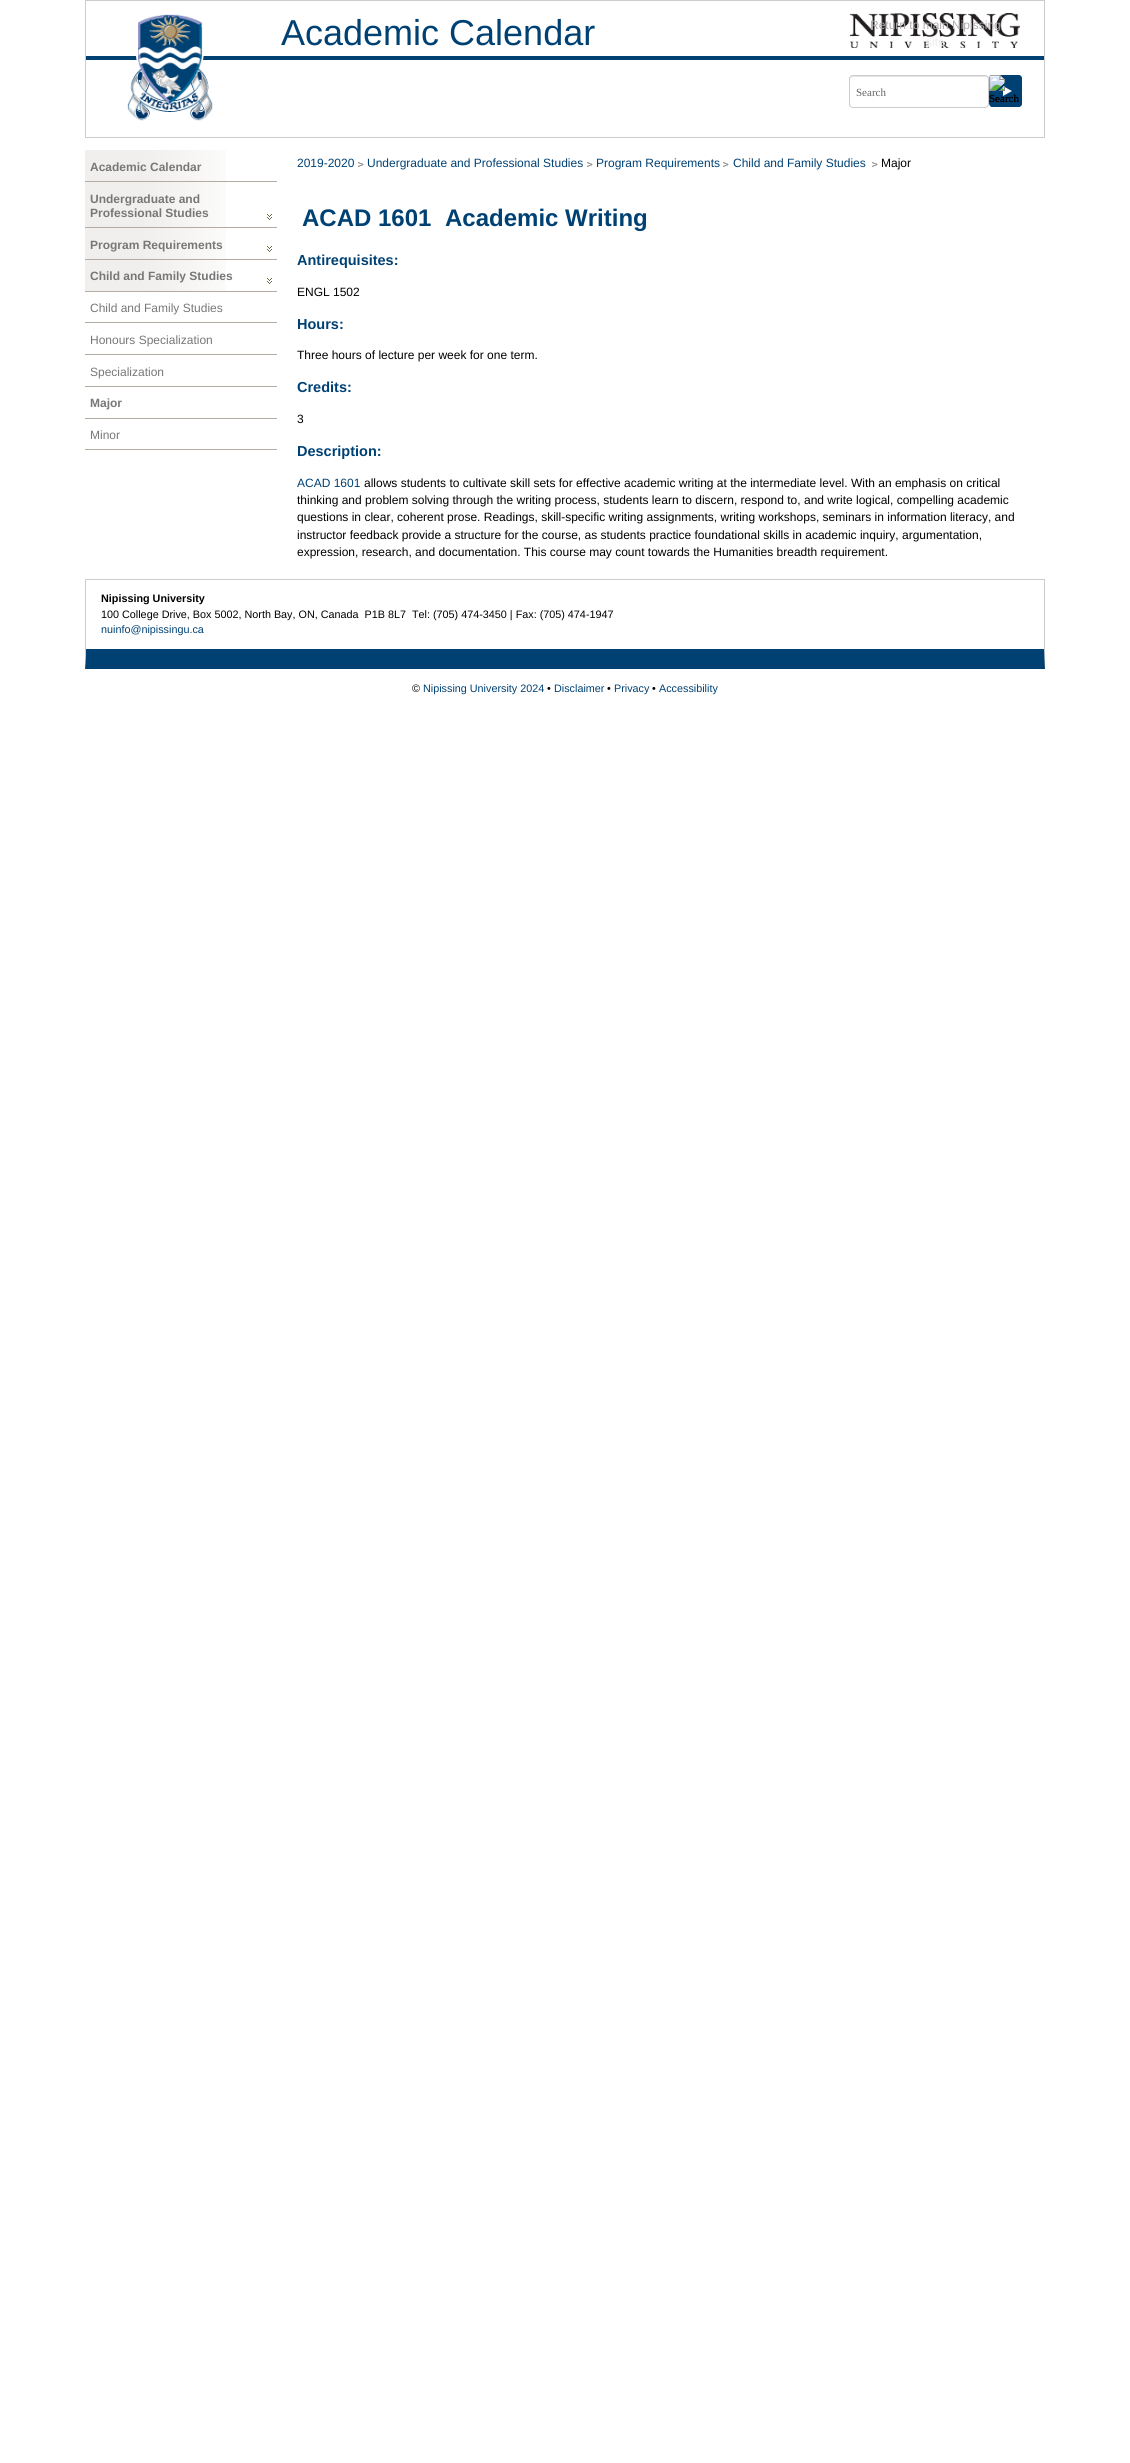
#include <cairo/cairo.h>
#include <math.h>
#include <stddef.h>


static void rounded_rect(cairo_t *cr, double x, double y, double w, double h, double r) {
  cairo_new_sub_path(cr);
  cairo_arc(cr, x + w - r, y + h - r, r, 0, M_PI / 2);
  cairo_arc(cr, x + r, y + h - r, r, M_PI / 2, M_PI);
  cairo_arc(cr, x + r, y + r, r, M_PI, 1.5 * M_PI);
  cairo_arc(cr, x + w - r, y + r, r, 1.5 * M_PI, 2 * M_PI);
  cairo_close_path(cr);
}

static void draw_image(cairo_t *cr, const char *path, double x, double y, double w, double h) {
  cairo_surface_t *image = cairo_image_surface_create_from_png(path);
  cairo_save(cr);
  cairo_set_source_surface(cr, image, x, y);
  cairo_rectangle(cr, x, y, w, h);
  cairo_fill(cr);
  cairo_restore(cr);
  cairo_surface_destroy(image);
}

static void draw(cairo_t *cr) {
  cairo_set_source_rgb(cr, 1, 1, 1);
  cairo_paint(cr);
  cairo_rectangle(cr, 85.5, 0.5, 959, 137);
  cairo_set_source_rgb(cr, 204 / 255.0, 204 / 255.0, 204 / 255.0);
  cairo_set_line_width(cr, 1);
  cairo_stroke(cr);
  cairo_set_source_rgb(cr, 0, 65 / 255.0, 116 / 255.0);
  cairo_rectangle(cr, 86, 56, 958, 4);
  cairo_fill(cr);
  draw_image(cr, "images/1.png", 127, 14, 86, 107);
  draw_image(cr, "images/2.png", 850, 13, 170, 35);
  cairo_set_source_rgb(cr, 230 / 255.0, 230 / 255.0, 230 / 255.0);
  cairo_new_path(cr);
  cairo_move_to(cr, 853, 77);
  cairo_line_to(cr, 985, 77);
  cairo_curve_to(cr, 987, 77, 988, 78, 988, 80);
  cairo_curve_to(cr, 988, 78, 988, 76, 986, 76);
  cairo_line_to(cr, 852, 76);
  cairo_curve_to(cr, 850, 76, 850, 78, 850, 80);
  cairo_curve_to(cr, 850, 78, 851, 77, 853, 77);
  cairo_close_path(cr);
  cairo_fill(cr);
  rounded_rect(cr, 849.5, 75.5, 139, 32, 3.5);
  cairo_set_source_rgb(cr, 204 / 255.0, 204 / 255.0, 204 / 255.0);
  cairo_stroke(cr);
  cairo_set_source_rgb(cr, 0, 65 / 255.0, 116 / 255.0);
  rounded_rect(cr, 989, 75, 33, 32, 4);
  cairo_fill(cr);
  draw_image(cr, "images/3.png", 989, 75, 33, 32);
  draw_image(cr, "images/4.png", 989, 75, 30, 27);
  draw_image(cr, "images/5.png", 85, 150, 141, 141);
  cairo_set_source_rgb(cr, 180 / 255.0, 172 / 255.0, 161 / 255.0);
  cairo_rectangle(cr, 85, 181, 192, 1);
  cairo_fill(cr);
  draw_image(cr, "images/6.png", 267, 214, 5, 6);
  cairo_rectangle(cr, 85, 227, 192, 1);
  cairo_fill(cr);
  draw_image(cr, "images/6.png", 267, 246, 5, 6);
  cairo_rectangle(cr, 85, 259, 192, 1);
  cairo_fill(cr);
  draw_image(cr, "images/6.png", 267, 278, 5, 6);
  cairo_rectangle(cr, 85, 291, 192, 1);
  cairo_fill(cr);
  cairo_rectangle(cr, 85, 322, 192, 1);
  cairo_fill(cr);
  cairo_rectangle(cr, 85, 354, 192, 1);
  cairo_fill(cr);
  cairo_rectangle(cr, 85, 386, 192, 1);
  cairo_fill(cr);
  cairo_rectangle(cr, 85, 418, 192, 1);
  cairo_fill(cr);
  cairo_rectangle(cr, 85, 449, 192, 1);
  cairo_fill(cr);
  draw_image(cr, "images/7.png", 358, 162, 6, 5);
  draw_image(cr, "images/7.png", 587, 162, 6, 5);
  draw_image(cr, "images/7.png", 723, 162, 6, 5);
  draw_image(cr, "images/7.png", 872, 162, 6, 5);
  cairo_set_source_rgb(cr, 204 / 255.0, 204 / 255.0, 204 / 255.0);
  cairo_rectangle(cr, 85, 579, 960, 1);
  cairo_fill(cr);
  cairo_new_path(cr);
  cairo_move_to(cr, 1045, 579);
  cairo_line_to(cr, 1045, 669);
  cairo_line_to(cr, 1044, 649);
  cairo_line_to(cr, 1044, 580);
  cairo_close_path(cr);
  cairo_fill(cr);
  cairo_set_source_rgb(cr, 0, 65 / 255.0, 116 / 255.0);
  cairo_new_path(cr);
  cairo_move_to(cr, 1045, 669);
  cairo_line_to(cr, 85, 669);
  cairo_line_to(cr, 86, 649);
  cairo_line_to(cr, 1044, 649);
  cairo_close_path(cr);
  cairo_fill(cr);
  cairo_set_source_rgb(cr, 204 / 255.0, 204 / 255.0, 204 / 255.0);
  cairo_new_path(cr);
  cairo_move_to(cr, 85, 669);
  cairo_line_to(cr, 85, 579);
  cairo_line_to(cr, 86, 580);
  cairo_line_to(cr, 86, 649);
  cairo_close_path(cr);
  cairo_fill(cr);
  cairo_select_font_face(cr, "Liberation Sans", CAIRO_FONT_SLANT_NORMAL, CAIRO_FONT_WEIGHT_NORMAL);
  cairo_set_font_size(cr, 36);
  cairo_set_source_rgb(cr, 0, 65 / 255.0, 116 / 255.0);
  cairo_move_to(cr, 281, 45);
  cairo_show_text(cr, "Academic Calendar");
  cairo_set_font_size(cr, 12);
  cairo_set_source_rgb(cr, 176 / 255.0, 174 / 255.0, 175 / 255.0);
  cairo_move_to(cr, 870, 29);
  cairo_show_text(cr, "Return to main Nipissing");
  cairo_set_source_rgb(cr, 235 / 255.0, 235 / 255.0, 235 / 255.0);
  cairo_move_to(cr, 926, 46);
  cairo_show_text(cr, "site");
  cairo_select_font_face(cr, "Liberation Serif", CAIRO_FONT_SLANT_NORMAL, CAIRO_FONT_WEIGHT_NORMAL);
  cairo_set_font_size(cr, 11);
  cairo_set_source_rgb(cr, 102 / 255.0, 102 / 255.0, 102 / 255.0);
  cairo_move_to(cr, 856, 96);
  cairo_show_text(cr, "Search");
  cairo_set_source_rgb(cr, 0, 0, 0);
  cairo_move_to(cr, 989, 102);
  cairo_show_text(cr, "Search");
  cairo_select_font_face(cr, "Liberation Sans", CAIRO_FONT_SLANT_NORMAL, CAIRO_FONT_WEIGHT_BOLD);
  cairo_set_font_size(cr, 12);
  cairo_set_source_rgb(cr, 119 / 255.0, 119 / 255.0, 119 / 255.0);
  cairo_move_to(cr, 90, 171);
  cairo_show_text(cr, "Academic Calendar");
  cairo_move_to(cr, 90, 203);
  cairo_show_text(cr, "Undergraduate and");
  cairo_move_to(cr, 90, 217);
  cairo_show_text(cr, "Professional Studies");
  cairo_move_to(cr, 90, 249);
  cairo_show_text(cr, "Program Requirements");
  cairo_move_to(cr, 90, 280);
  cairo_show_text(cr, "Child and Family Studies");
  cairo_select_font_face(cr, "Liberation Sans", CAIRO_FONT_SLANT_NORMAL, CAIRO_FONT_WEIGHT_NORMAL);
  cairo_move_to(cr, 90, 312);
  cairo_show_text(cr, "Child and Family Studies");
  cairo_move_to(cr, 90, 344);
  cairo_show_text(cr, "Honours Specialization");
  cairo_move_to(cr, 90, 376);
  cairo_show_text(cr, "Specialization");
  cairo_select_font_face(cr, "Liberation Sans", CAIRO_FONT_SLANT_NORMAL, CAIRO_FONT_WEIGHT_BOLD);
  cairo_move_to(cr, 90, 407);
  cairo_show_text(cr, "Major");
  cairo_select_font_face(cr, "Liberation Sans", CAIRO_FONT_SLANT_NORMAL, CAIRO_FONT_WEIGHT_NORMAL);
  cairo_move_to(cr, 90, 439);
  cairo_show_text(cr, "Minor");
  cairo_set_source_rgb(cr, 0, 65 / 255.0, 116 / 255.0);
  cairo_move_to(cr, 297, 167);
  cairo_show_text(cr, "2019-2020");
  cairo_move_to(cr, 367, 167);
  cairo_show_text(cr, "Undergraduate and Professional Studies");
  cairo_move_to(cr, 596, 167);
  cairo_show_text(cr, "Program Requirements");
  cairo_move_to(cr, 733, 167);
  cairo_show_text(cr, "Child and Family Studies");
  cairo_set_source_rgb(cr, 0, 0, 0);
  cairo_move_to(cr, 881, 167);
  cairo_show_text(cr, "Major");
  cairo_select_font_face(cr, "Liberation Sans", CAIRO_FONT_SLANT_NORMAL, CAIRO_FONT_WEIGHT_BOLD);
  cairo_set_font_size(cr, 24);
  cairo_set_source_rgb(cr, 0, 65 / 255.0, 116 / 255.0);
  cairo_move_to(cr, 302, 226);
  cairo_show_text(cr, "ACAD 1601");
  cairo_move_to(cr, 445, 226);
  cairo_show_text(cr, "Academic Writing");
  cairo_set_font_size(cr, 14.5);
  cairo_move_to(cr, 297, 265);
  cairo_show_text(cr, "Antirequisites:");
  cairo_select_font_face(cr, "Liberation Sans", CAIRO_FONT_SLANT_NORMAL, CAIRO_FONT_WEIGHT_NORMAL);
  cairo_set_font_size(cr, 12);
  cairo_set_source_rgb(cr, 0, 0, 0);
  cairo_move_to(cr, 297, 296);
  cairo_show_text(cr, "ENGL 1502");
  cairo_select_font_face(cr, "Liberation Sans", CAIRO_FONT_SLANT_NORMAL, CAIRO_FONT_WEIGHT_BOLD);
  cairo_set_font_size(cr, 14.5);
  cairo_set_source_rgb(cr, 0, 65 / 255.0, 116 / 255.0);
  cairo_move_to(cr, 297, 329);
  cairo_show_text(cr, "Hours:");
  cairo_select_font_face(cr, "Liberation Sans", CAIRO_FONT_SLANT_NORMAL, CAIRO_FONT_WEIGHT_NORMAL);
  cairo_set_font_size(cr, 12);
  cairo_set_source_rgb(cr, 0, 0, 0);
  cairo_move_to(cr, 297, 359);
  cairo_show_text(cr, "Three hours of lecture per week for one term.");
  cairo_select_font_face(cr, "Liberation Sans", CAIRO_FONT_SLANT_NORMAL, CAIRO_FONT_WEIGHT_BOLD);
  cairo_set_font_size(cr, 14.5);
  cairo_set_source_rgb(cr, 0, 65 / 255.0, 116 / 255.0);
  cairo_move_to(cr, 297, 392);
  cairo_show_text(cr, "Credits:");
  cairo_select_font_face(cr, "Liberation Sans", CAIRO_FONT_SLANT_NORMAL, CAIRO_FONT_WEIGHT_NORMAL);
  cairo_set_font_size(cr, 12);
  cairo_set_source_rgb(cr, 0, 0, 0);
  cairo_move_to(cr, 297, 423);
  cairo_show_text(cr, "3");
  cairo_select_font_face(cr, "Liberation Sans", CAIRO_FONT_SLANT_NORMAL, CAIRO_FONT_WEIGHT_BOLD);
  cairo_set_font_size(cr, 14.5);
  cairo_set_source_rgb(cr, 0, 65 / 255.0, 116 / 255.0);
  cairo_move_to(cr, 297, 456);
  cairo_show_text(cr, "Description:");
  cairo_select_font_face(cr, "Liberation Sans", CAIRO_FONT_SLANT_NORMAL, CAIRO_FONT_WEIGHT_NORMAL);
  cairo_set_font_size(cr, 12);
  cairo_move_to(cr, 297, 487);
  cairo_show_text(cr, "ACAD 1601");
  cairo_set_source_rgb(cr, 0, 0, 0);
  cairo_move_to(cr, 364, 487);
  cairo_show_text(cr, "allows students to cultivate skill sets for effective academic writing at the intermediate level. With an emphasis on critical");
  cairo_move_to(cr, 297, 504);
  cairo_show_text(cr, "thinking and problem solving through the writing process, students learn to discern, respond to, and write logical, compelling academic");
  cairo_move_to(cr, 297, 521);
  cairo_show_text(cr, "questions in clear, coherent prose. Readings, skill-specific writing assignments, writing workshops, seminars in information literacy, and");
  cairo_move_to(cr, 297, 539);
  cairo_show_text(cr, "instructor feedback provide a structure for the course, as students practice foundational skills in academic inquiry, argumentation,");
  cairo_move_to(cr, 297, 556);
  cairo_show_text(cr, "expression, research, and documentation. This course may count towards the Humanities breadth requirement.");
  cairo_select_font_face(cr, "Liberation Sans", CAIRO_FONT_SLANT_NORMAL, CAIRO_FONT_WEIGHT_BOLD);
  cairo_set_font_size(cr, 10.8);
  cairo_move_to(cr, 101, 602);
  cairo_show_text(cr, "Nipissing University");
  cairo_select_font_face(cr, "Liberation Sans", CAIRO_FONT_SLANT_NORMAL, CAIRO_FONT_WEIGHT_NORMAL);
  cairo_move_to(cr, 101, 618);
  cairo_show_text(cr, "100 College Drive, Box 5002, North Bay, ON, Canada  P1B 8L7  Tel: (705) 474-3450 | Fax: (705) 474-1947");
  cairo_set_source_rgb(cr, 0, 65 / 255.0, 116 / 255.0);
  cairo_move_to(cr, 101, 633);
  cairo_show_text(cr, "nuinfo@nipissingu.ca");
  cairo_set_source_rgb(cr, 0, 0, 0);
  cairo_move_to(cr, 412, 692);
  cairo_show_text(cr, "©");
  cairo_set_source_rgb(cr, 0, 65 / 255.0, 116 / 255.0);
  cairo_move_to(cr, 423, 692);
  cairo_show_text(cr, "Nipissing University 2024");
  cairo_set_source_rgb(cr, 0, 0, 0);
  cairo_move_to(cr, 547, 692);
  cairo_show_text(cr, "•");
  cairo_set_source_rgb(cr, 0, 65 / 255.0, 116 / 255.0);
  cairo_move_to(cr, 554, 692);
  cairo_show_text(cr, "Disclaimer");
  cairo_set_source_rgb(cr, 0, 0, 0);
  cairo_move_to(cr, 607, 692);
  cairo_show_text(cr, "•");
  cairo_set_source_rgb(cr, 0, 65 / 255.0, 116 / 255.0);
  cairo_move_to(cr, 614, 692);
  cairo_show_text(cr, "Privacy");
  cairo_set_source_rgb(cr, 0, 0, 0);
  cairo_move_to(cr, 652, 692);
  cairo_show_text(cr, "•");
  cairo_set_source_rgb(cr, 0, 65 / 255.0, 116 / 255.0);
  cairo_move_to(cr, 659, 692);
  cairo_show_text(cr, "Accessibility");
}

int main(void) {
  cairo_surface_t *surface = cairo_image_surface_create(CAIRO_FORMAT_RGB24, 1130, 2463);
  cairo_t *cr = cairo_create(surface);
  cairo_font_options_t *options = cairo_font_options_create();
  cairo_font_options_set_hint_metrics(options, CAIRO_HINT_METRICS_OFF);
  cairo_font_options_set_hint_style(options, CAIRO_HINT_STYLE_NONE);
  cairo_set_font_options(cr, options);
  cairo_set_miter_limit(cr, 4);
  draw(cr);
  cairo_surface_write_to_png(surface, "out.png");
  cairo_font_options_destroy(options);
  cairo_destroy(cr);
  cairo_surface_destroy(surface);
  return 0;
}
